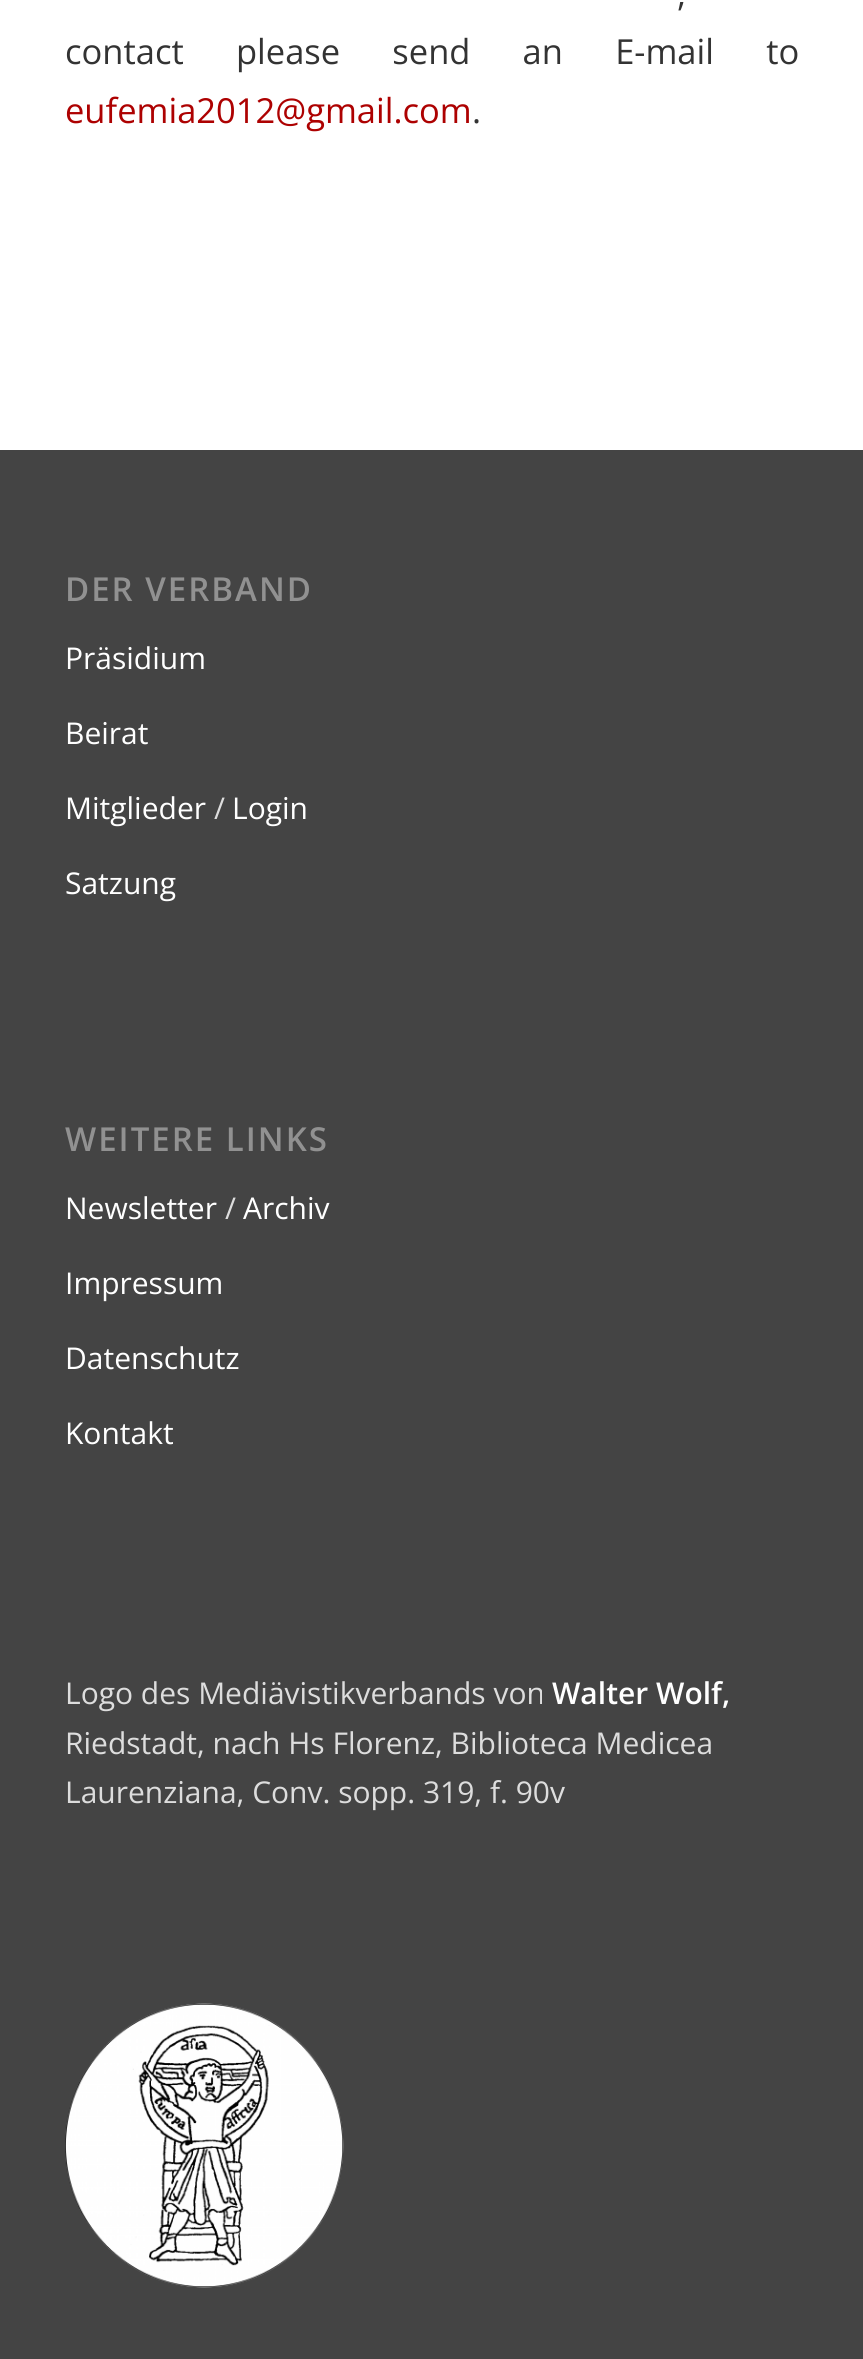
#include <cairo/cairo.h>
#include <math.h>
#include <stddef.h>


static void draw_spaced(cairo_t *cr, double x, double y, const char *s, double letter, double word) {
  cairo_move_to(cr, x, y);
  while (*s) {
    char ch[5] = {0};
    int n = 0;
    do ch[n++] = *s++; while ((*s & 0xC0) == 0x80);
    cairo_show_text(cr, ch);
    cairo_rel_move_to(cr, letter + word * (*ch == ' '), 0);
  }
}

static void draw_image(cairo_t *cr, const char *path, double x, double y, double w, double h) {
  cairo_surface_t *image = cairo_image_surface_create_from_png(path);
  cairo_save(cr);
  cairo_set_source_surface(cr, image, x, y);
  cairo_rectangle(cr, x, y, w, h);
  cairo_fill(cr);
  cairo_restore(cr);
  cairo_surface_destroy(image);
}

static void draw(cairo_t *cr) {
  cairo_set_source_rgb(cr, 1, 1, 1);
  cairo_paint(cr);
  cairo_set_source_rgb(cr, 68 / 255.0, 68 / 255.0, 68 / 255.0);
  cairo_rectangle(cr, 0, 450, 863, 1909);
  cairo_fill(cr);
  draw_image(cr, "images/1.png", 65, 2003, 279, 285);
  cairo_select_font_face(cr, "Open Sans", CAIRO_FONT_SLANT_NORMAL, CAIRO_FONT_WEIGHT_NORMAL);
  cairo_set_font_size(cr, 34.5);
  cairo_set_source_rgb(cr, 51 / 255.0, 51 / 255.0, 51 / 255.0);
  cairo_move_to(cr, 677, 6);
  cairo_show_text(cr, ",");
  draw_spaced(cr, 65, 64, "contact please send an E-mail to", 0, 43.25);
  cairo_set_source_rgb(cr, 173 / 255.0, 1 / 255.0, 1 / 255.0);
  cairo_move_to(cr, 65, 123);
  cairo_show_text(cr, "eufemia2012@gmail.com");
  cairo_set_source_rgb(cr, 51 / 255.0, 51 / 255.0, 51 / 255.0);
  cairo_move_to(cr, 472, 123);
  cairo_show_text(cr, ".");
  cairo_select_font_face(cr, "Open Sans SemiBold", CAIRO_FONT_SLANT_NORMAL, CAIRO_FONT_WEIGHT_NORMAL);
  cairo_set_font_size(cr, 33);
  cairo_set_source_rgb(cr, 145 / 255.0, 145 / 255.0, 145 / 255.0);
  draw_spaced(cr, 65, 601, "DER VERBAND", 2, 0);
  cairo_select_font_face(cr, "Open Sans", CAIRO_FONT_SLANT_NORMAL, CAIRO_FONT_WEIGHT_NORMAL);
  cairo_set_font_size(cr, 30);
  cairo_set_source_rgb(cr, 1, 1, 1);
  cairo_move_to(cr, 65, 669);
  cairo_show_text(cr, "Präsidium");
  cairo_move_to(cr, 65, 744);
  cairo_show_text(cr, "Beirat");
  cairo_move_to(cr, 65, 819);
  cairo_show_text(cr, "Mitglieder");
  cairo_set_source_rgb(cr, 221 / 255.0, 221 / 255.0, 221 / 255.0);
  cairo_move_to(cr, 214, 819);
  cairo_show_text(cr, "/");
  cairo_set_source_rgb(cr, 1, 1, 1);
  cairo_move_to(cr, 232, 819);
  cairo_show_text(cr, "Login");
  cairo_move_to(cr, 65, 894);
  cairo_show_text(cr, "Satzung");
  cairo_select_font_face(cr, "Open Sans SemiBold", CAIRO_FONT_SLANT_NORMAL, CAIRO_FONT_WEIGHT_NORMAL);
  cairo_set_font_size(cr, 33);
  cairo_set_source_rgb(cr, 145 / 255.0, 145 / 255.0, 145 / 255.0);
  draw_spaced(cr, 65, 1151, "WEITERE LINKS", 2, 0);
  cairo_select_font_face(cr, "Open Sans", CAIRO_FONT_SLANT_NORMAL, CAIRO_FONT_WEIGHT_NORMAL);
  cairo_set_font_size(cr, 30);
  cairo_set_source_rgb(cr, 1, 1, 1);
  cairo_move_to(cr, 65, 1219);
  cairo_show_text(cr, "Newsletter");
  cairo_set_source_rgb(cr, 221 / 255.0, 221 / 255.0, 221 / 255.0);
  cairo_move_to(cr, 225, 1219);
  cairo_show_text(cr, "/");
  cairo_set_source_rgb(cr, 1, 1, 1);
  cairo_move_to(cr, 243, 1219);
  cairo_show_text(cr, "Archiv");
  cairo_move_to(cr, 65, 1294);
  cairo_show_text(cr, "Impressum");
  cairo_move_to(cr, 65, 1369);
  cairo_show_text(cr, "Datenschutz");
  cairo_move_to(cr, 65, 1444);
  cairo_show_text(cr, "Kontakt");
  cairo_set_source_rgb(cr, 221 / 255.0, 221 / 255.0, 221 / 255.0);
  cairo_move_to(cr, 65, 1704);
  cairo_show_text(cr, "Logo des Mediävistikverbands von");
  cairo_select_font_face(cr, "Open Sans SemiBold", CAIRO_FONT_SLANT_NORMAL, CAIRO_FONT_WEIGHT_NORMAL);
  cairo_set_source_rgb(cr, 1, 1, 1);
  cairo_move_to(cr, 552, 1704);
  cairo_show_text(cr, "Walter Wolf,");
  cairo_select_font_face(cr, "Open Sans", CAIRO_FONT_SLANT_NORMAL, CAIRO_FONT_WEIGHT_NORMAL);
  cairo_set_source_rgb(cr, 221 / 255.0, 221 / 255.0, 221 / 255.0);
  cairo_move_to(cr, 65, 1754);
  cairo_show_text(cr, "Riedstadt, nach Hs Florenz, Biblioteca Medicea");
  cairo_move_to(cr, 65, 1803);
  cairo_show_text(cr, "Laurenziana, Conv. sopp. 319, f. 90v");
}

int main(void) {
  cairo_surface_t *surface = cairo_image_surface_create(CAIRO_FORMAT_RGB24, 863, 2359);
  cairo_t *cr = cairo_create(surface);
  cairo_font_options_t *options = cairo_font_options_create();
  cairo_font_options_set_hint_metrics(options, CAIRO_HINT_METRICS_OFF);
  cairo_font_options_set_hint_style(options, CAIRO_HINT_STYLE_NONE);
  cairo_set_font_options(cr, options);
  cairo_set_miter_limit(cr, 4);
  draw(cr);
  cairo_surface_write_to_png(surface, "out.png");
  cairo_font_options_destroy(options);
  cairo_destroy(cr);
  cairo_surface_destroy(surface);
  return 0;
}
